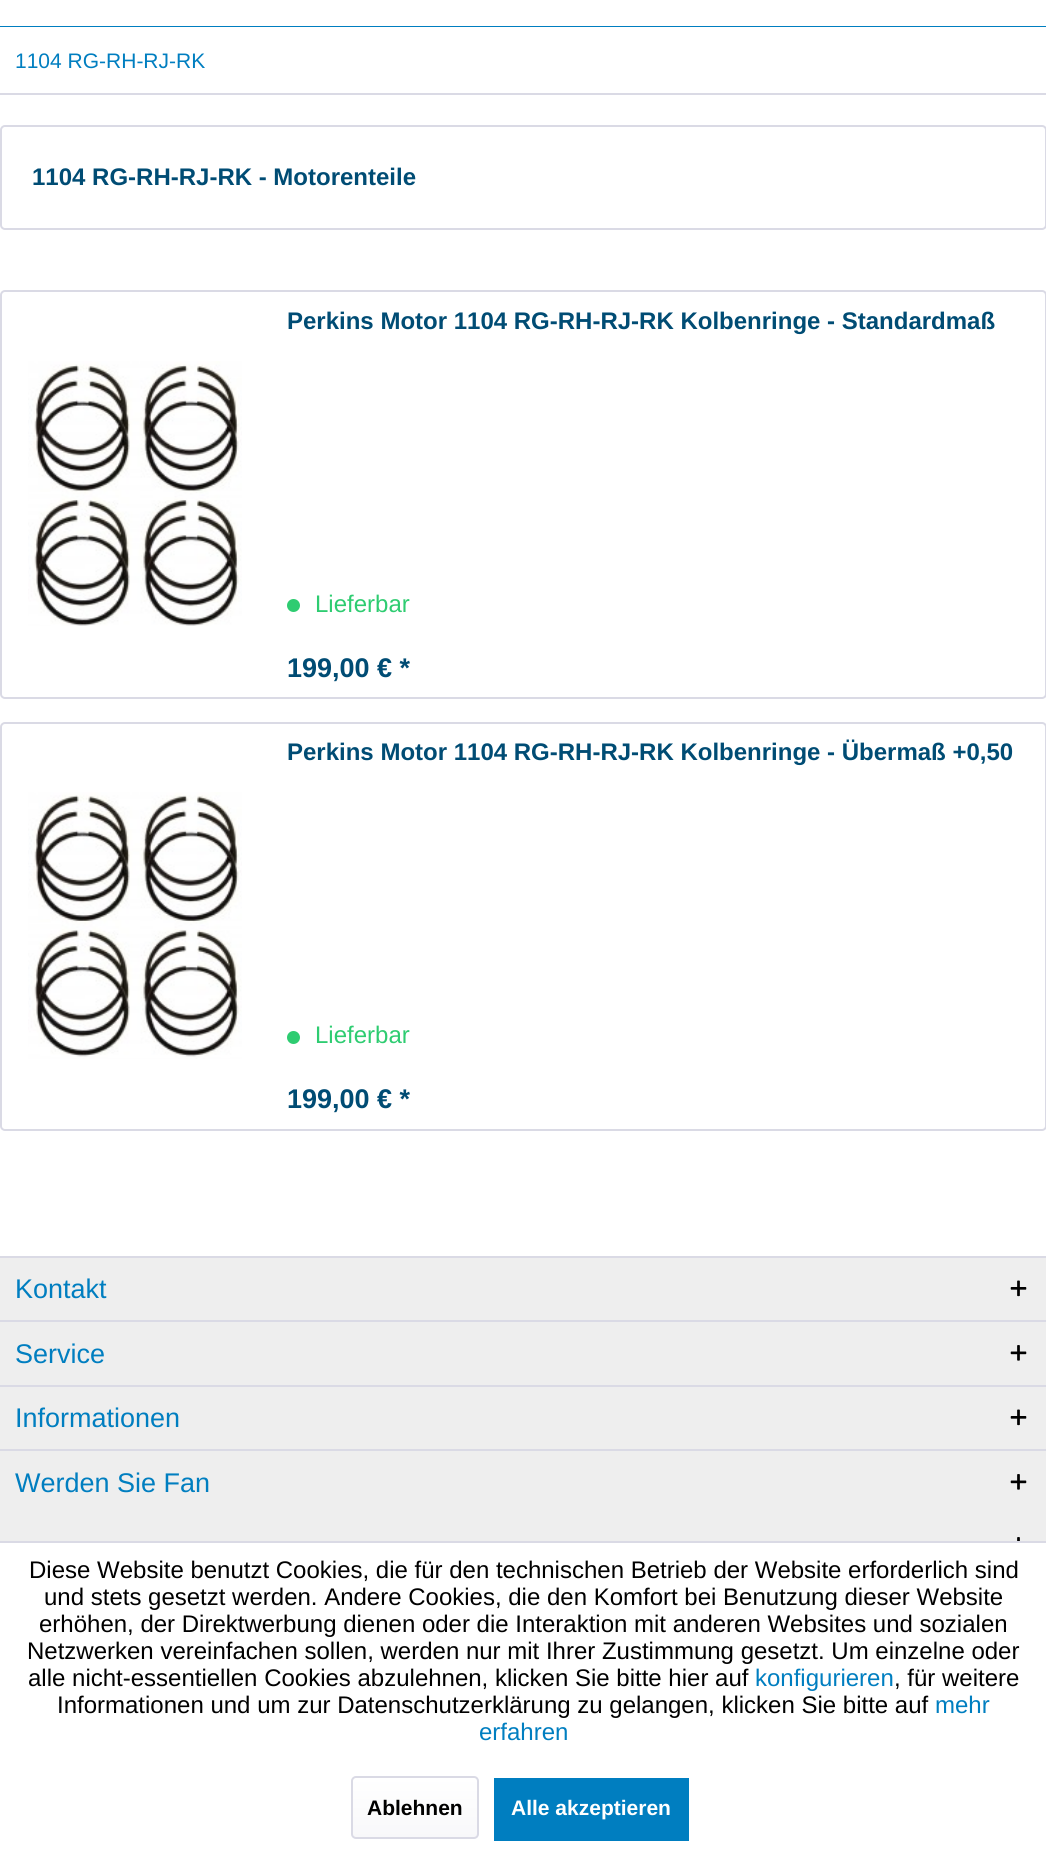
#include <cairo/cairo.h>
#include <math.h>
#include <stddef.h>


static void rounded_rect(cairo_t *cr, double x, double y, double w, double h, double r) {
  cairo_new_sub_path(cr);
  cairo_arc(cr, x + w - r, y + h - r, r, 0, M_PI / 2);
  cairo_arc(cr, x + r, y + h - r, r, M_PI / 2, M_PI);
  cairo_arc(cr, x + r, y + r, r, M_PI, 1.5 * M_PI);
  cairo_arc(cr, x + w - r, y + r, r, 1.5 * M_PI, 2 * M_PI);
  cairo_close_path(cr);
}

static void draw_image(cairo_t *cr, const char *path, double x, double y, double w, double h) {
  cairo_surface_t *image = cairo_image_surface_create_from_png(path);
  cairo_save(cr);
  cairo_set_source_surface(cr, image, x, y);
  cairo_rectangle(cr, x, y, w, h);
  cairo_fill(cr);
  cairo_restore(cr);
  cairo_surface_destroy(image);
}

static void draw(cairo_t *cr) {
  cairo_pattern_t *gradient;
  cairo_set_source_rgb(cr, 1, 1, 1);
  cairo_paint(cr);
  cairo_set_source_rgb(cr, 0, 126 / 255.0, 192 / 255.0);
  cairo_rectangle(cr, 0, 26, 1046, 1);
  cairo_fill(cr);
  cairo_set_source_rgb(cr, 218 / 255.0, 218 / 255.0, 229 / 255.0);
  cairo_rectangle(cr, 0, 93, 1046, 2);
  cairo_fill(cr);
  rounded_rect(cr, 1, 126, 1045, 103, 4);
  cairo_stroke(cr);
  rounded_rect(cr, 1, 291, 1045, 407, 4);
  cairo_stroke(cr);
  draw_image(cr, "images/1.png", 28, 361, 214, 265);
  cairo_set_source_rgb(cr, 46 / 255.0, 204 / 255.0, 113 / 255.0);
  cairo_arc(cr, 293.5, 605.5, 6.5, 0, 2 * M_PI);
  cairo_fill(cr);
  rounded_rect(cr, 1, 723, 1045, 407, 4);
  cairo_set_source_rgb(cr, 218 / 255.0, 218 / 255.0, 229 / 255.0);
  cairo_stroke(cr);
  draw_image(cr, "images/2.png", 28, 792, 214, 267);
  cairo_set_source_rgb(cr, 46 / 255.0, 204 / 255.0, 113 / 255.0);
  cairo_arc(cr, 293.5, 1037.5, 6.5, 0, 2 * M_PI);
  cairo_fill(cr);
  cairo_set_source_rgb(cr, 238 / 255.0, 238 / 255.0, 238 / 255.0);
  cairo_rectangle(cr, 0, 1258, 1046, 283);
  cairo_fill(cr);
  cairo_set_source_rgb(cr, 218 / 255.0, 218 / 255.0, 229 / 255.0);
  cairo_rectangle(cr, 0, 1256, 1046, 2);
  cairo_fill(cr);
  draw_image(cr, "images/3.png", 1010, 1280, 17, 17);
  cairo_rectangle(cr, 0, 1320, 1046, 2);
  cairo_fill(cr);
  draw_image(cr, "images/4.png", 1010, 1345, 17, 16);
  cairo_rectangle(cr, 0, 1385, 1046, 2);
  cairo_fill(cr);
  draw_image(cr, "images/3.png", 1010, 1409, 17, 17);
  cairo_rectangle(cr, 0, 1449, 1046, 2);
  cairo_fill(cr);
  draw_image(cr, "images/4.png", 1010, 1474, 17, 16);
  draw_image(cr, "images/5.png", 1017, 1537, 3, 4);
  cairo_rectangle(cr, 0, 1541, 1046, 2);
  cairo_fill(cr);
  gradient = cairo_pattern_create_linear(415, 1778, 415, 1838);
  cairo_pattern_add_color_stop_rgba(gradient, 0, 1, 1, 1, 1);
  cairo_pattern_add_color_stop_rgba(gradient, 1, 248 / 255.0, 248 / 255.0, 250 / 255.0, 1);
  cairo_set_source(cr, gradient);
  cairo_pattern_destroy(gradient);
  rounded_rect(cr, 353, 1778, 124, 60, 3);
  cairo_fill(cr);
  rounded_rect(cr, 352, 1777, 126, 61, 4);
  cairo_set_source_rgb(cr, 218 / 255.0, 218 / 255.0, 229 / 255.0);
  cairo_stroke(cr);
  cairo_set_source_rgb(cr, 0, 126 / 255.0, 192 / 255.0);
  cairo_rectangle(cr, 494, 1778, 195, 63);
  cairo_fill(cr);
  cairo_select_font_face(cr, "Liberation Sans", CAIRO_FONT_SLANT_NORMAL, CAIRO_FONT_WEIGHT_NORMAL);
  cairo_set_font_size(cr, 21);
  cairo_move_to(cr, 15, 68);
  cairo_show_text(cr, "1104 RG-RH-RJ-RK");
  cairo_select_font_face(cr, "Liberation Sans", CAIRO_FONT_SLANT_NORMAL, CAIRO_FONT_WEIGHT_BOLD);
  cairo_set_font_size(cr, 24);
  cairo_set_source_rgb(cr, 0, 76 / 255.0, 116 / 255.0);
  cairo_move_to(cr, 32, 185);
  cairo_show_text(cr, "1104 RG-RH-RJ-RK - Motorenteile");
  cairo_move_to(cr, 287, 329);
  cairo_show_text(cr, "Perkins Motor 1104 RG-RH-RJ-RK Kolbenringe - Standardmaß");
  cairo_select_font_face(cr, "Liberation Sans", CAIRO_FONT_SLANT_NORMAL, CAIRO_FONT_WEIGHT_NORMAL);
  cairo_set_source_rgb(cr, 46 / 255.0, 204 / 255.0, 113 / 255.0);
  cairo_move_to(cr, 315, 612);
  cairo_show_text(cr, "Lieferbar");
  cairo_select_font_face(cr, "Liberation Sans", CAIRO_FONT_SLANT_NORMAL, CAIRO_FONT_WEIGHT_BOLD);
  cairo_set_font_size(cr, 27);
  cairo_set_source_rgb(cr, 0, 76 / 255.0, 116 / 255.0);
  cairo_move_to(cr, 287, 677);
  cairo_show_text(cr, "199,00 € *");
  cairo_set_font_size(cr, 24);
  cairo_move_to(cr, 287, 760);
  cairo_show_text(cr, "Perkins Motor 1104 RG-RH-RJ-RK Kolbenringe - Übermaß +0,50");
  cairo_select_font_face(cr, "Liberation Sans", CAIRO_FONT_SLANT_NORMAL, CAIRO_FONT_WEIGHT_NORMAL);
  cairo_set_source_rgb(cr, 46 / 255.0, 204 / 255.0, 113 / 255.0);
  cairo_move_to(cr, 315, 1043);
  cairo_show_text(cr, "Lieferbar");
  cairo_select_font_face(cr, "Liberation Sans", CAIRO_FONT_SLANT_NORMAL, CAIRO_FONT_WEIGHT_BOLD);
  cairo_set_font_size(cr, 27);
  cairo_set_source_rgb(cr, 0, 76 / 255.0, 116 / 255.0);
  cairo_move_to(cr, 287, 1108);
  cairo_show_text(cr, "199,00 € *");
  cairo_select_font_face(cr, "Liberation Sans", CAIRO_FONT_SLANT_NORMAL, CAIRO_FONT_WEIGHT_NORMAL);
  cairo_set_source_rgb(cr, 0, 126 / 255.0, 192 / 255.0);
  cairo_move_to(cr, 15, 1298);
  cairo_show_text(cr, "Kontakt");
  cairo_move_to(cr, 15, 1363);
  cairo_show_text(cr, "Service");
  cairo_move_to(cr, 15, 1427);
  cairo_show_text(cr, "Informationen");
  cairo_move_to(cr, 15, 1492);
  cairo_show_text(cr, "Werden Sie Fan");
  cairo_set_font_size(cr, 24);
  cairo_set_source_rgb(cr, 0, 0, 0);
  cairo_move_to(cr, 29, 1578);
  cairo_show_text(cr, "Diese Website benutzt Cookies, die für den technischen Betrieb der Website erforderlich sind");
  cairo_move_to(cr, 44, 1605);
  cairo_show_text(cr, "und stets gesetzt werden. Andere Cookies, die den Komfort bei Benutzung dieser Website");
  cairo_move_to(cr, 39, 1632);
  cairo_show_text(cr, "erhöhen, der Direktwerbung dienen oder die Interaktion mit anderen Websites und sozialen");
  cairo_move_to(cr, 27, 1659);
  cairo_show_text(cr, "Netzwerken vereinfachen sollen, werden nur mit Ihrer Zustimmung gesetzt. Um einzelne oder");
  cairo_move_to(cr, 28, 1686);
  cairo_show_text(cr, "alle nicht-essentiellen Cookies abzulehnen, klicken Sie bitte hier auf");
  cairo_set_source_rgb(cr, 0, 126 / 255.0, 192 / 255.0);
  cairo_move_to(cr, 755, 1686);
  cairo_show_text(cr, "konfigurieren");
  cairo_set_source_rgb(cr, 0, 0, 0);
  cairo_move_to(cr, 894, 1686);
  cairo_show_text(cr, ", für weitere");
  cairo_move_to(cr, 57, 1713);
  cairo_show_text(cr, "Informationen und um zur Datenschutzerklärung zu gelangen, klicken Sie bitte auf");
  cairo_set_source_rgb(cr, 0, 126 / 255.0, 192 / 255.0);
  cairo_move_to(cr, 935, 1713);
  cairo_show_text(cr, "mehr");
  cairo_move_to(cr, 479, 1740);
  cairo_show_text(cr, "erfahren");
  cairo_select_font_face(cr, "Liberation Sans", CAIRO_FONT_SLANT_NORMAL, CAIRO_FONT_WEIGHT_BOLD);
  cairo_set_font_size(cr, 21);
  cairo_set_source_rgb(cr, 0, 0, 0);
  cairo_move_to(cr, 367, 1815);
  cairo_show_text(cr, "Ablehnen");
  cairo_set_source_rgb(cr, 1, 1, 1);
  cairo_move_to(cr, 511, 1815);
  cairo_show_text(cr, "Alle akzeptieren");
}

int main(void) {
  cairo_surface_t *surface = cairo_image_surface_create(CAIRO_FORMAT_RGB24, 1046, 1855);
  cairo_t *cr = cairo_create(surface);
  cairo_font_options_t *options = cairo_font_options_create();
  cairo_font_options_set_hint_metrics(options, CAIRO_HINT_METRICS_OFF);
  cairo_font_options_set_hint_style(options, CAIRO_HINT_STYLE_NONE);
  cairo_set_font_options(cr, options);
  cairo_set_miter_limit(cr, 4);
  draw(cr);
  cairo_surface_write_to_png(surface, "out.png");
  cairo_font_options_destroy(options);
  cairo_destroy(cr);
  cairo_surface_destroy(surface);
  return 0;
}
